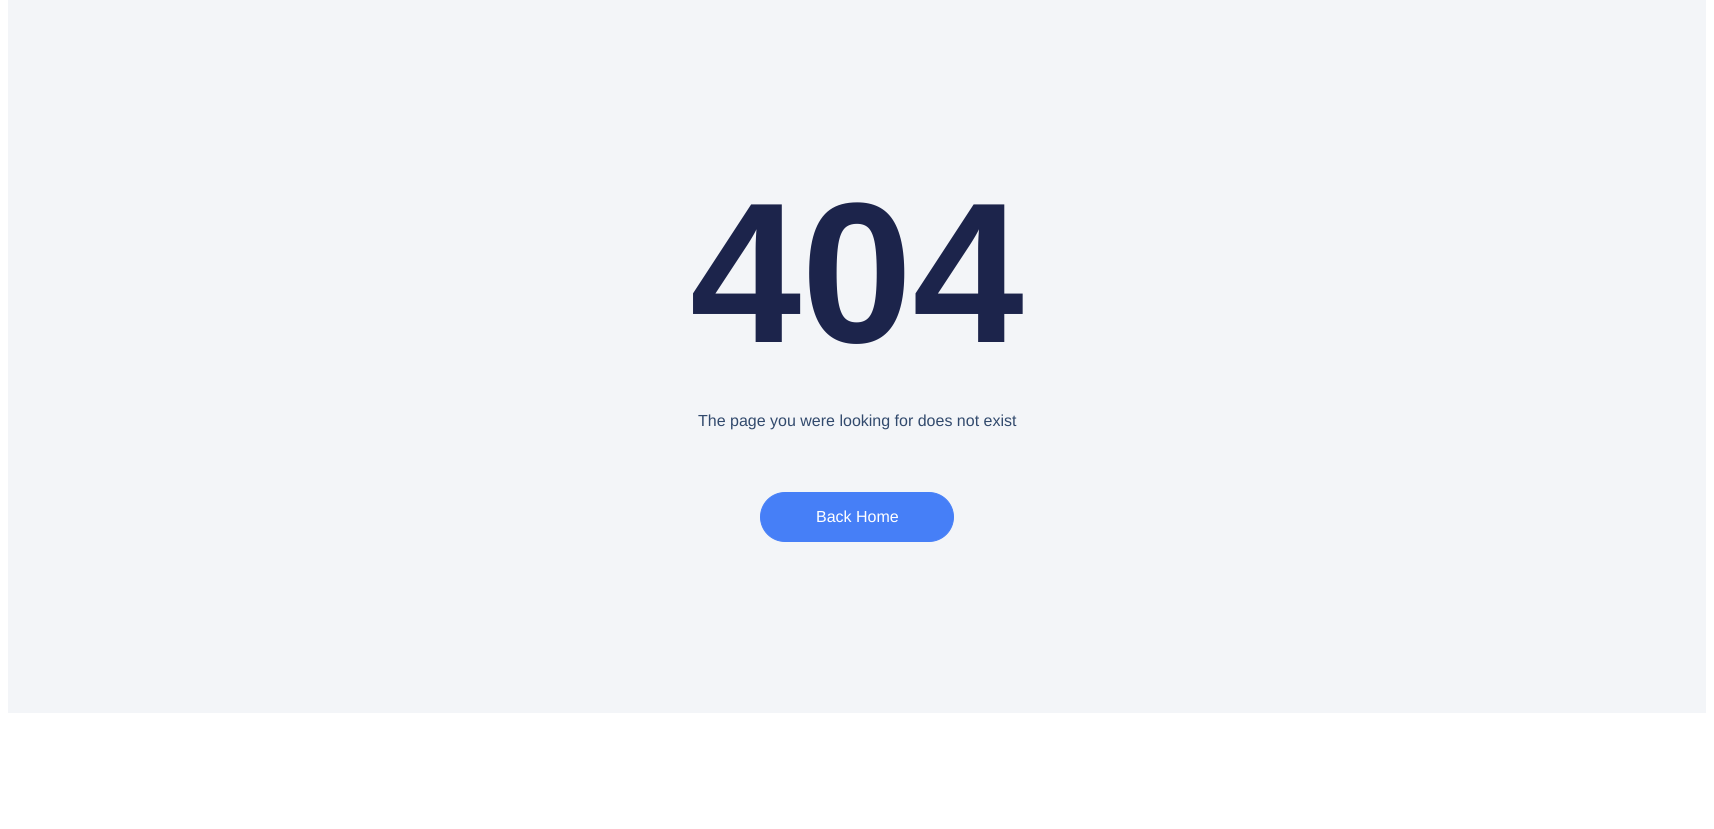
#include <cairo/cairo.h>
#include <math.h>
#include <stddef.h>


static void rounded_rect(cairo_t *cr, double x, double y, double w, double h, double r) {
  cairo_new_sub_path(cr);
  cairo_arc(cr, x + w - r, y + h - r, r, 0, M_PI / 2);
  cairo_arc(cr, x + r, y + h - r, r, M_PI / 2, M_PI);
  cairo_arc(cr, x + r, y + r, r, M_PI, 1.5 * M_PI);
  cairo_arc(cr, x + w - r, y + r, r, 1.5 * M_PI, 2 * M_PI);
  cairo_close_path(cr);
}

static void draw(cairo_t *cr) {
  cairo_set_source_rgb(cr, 1, 1, 1);
  cairo_paint(cr);
  cairo_set_source_rgb(cr, 243 / 255.0, 245 / 255.0, 248 / 255.0);
  cairo_rectangle(cr, 8, 0, 1698, 713);
  cairo_fill(cr);
  cairo_set_source_rgb(cr, 70 / 255.0, 127 / 255.0, 247 / 255.0);
  rounded_rect(cr, 760.5, 492.5, 193, 49, 24.5);
  cairo_fill_preserve(cr);
  cairo_set_line_width(cr, 1);
  cairo_stroke(cr);
  cairo_select_font_face(cr, "Liberation Sans", CAIRO_FONT_SLANT_NORMAL, CAIRO_FONT_WEIGHT_BOLD);
  cairo_set_font_size(cr, 200);
  cairo_set_source_rgb(cr, 28 / 255.0, 36 / 255.0, 75 / 255.0);
  cairo_move_to(cr, 690, 342);
  cairo_show_text(cr, "404");
  cairo_select_font_face(cr, "Liberation Sans", CAIRO_FONT_SLANT_NORMAL, CAIRO_FONT_WEIGHT_NORMAL);
  cairo_set_font_size(cr, 16);
  cairo_set_source_rgb(cr, 50 / 255.0, 74 / 255.0, 109 / 255.0);
  cairo_move_to(cr, 698, 426);
  cairo_show_text(cr, "The page you were looking for does not exist");
  cairo_set_source_rgb(cr, 1, 1, 1);
  cairo_move_to(cr, 816, 522);
  cairo_show_text(cr, "Back Home");
}

int main(void) {
  cairo_surface_t *surface = cairo_image_surface_create(CAIRO_FORMAT_RGB24, 1714, 829);
  cairo_t *cr = cairo_create(surface);
  cairo_font_options_t *options = cairo_font_options_create();
  cairo_font_options_set_hint_metrics(options, CAIRO_HINT_METRICS_OFF);
  cairo_font_options_set_hint_style(options, CAIRO_HINT_STYLE_NONE);
  cairo_set_font_options(cr, options);
  cairo_set_miter_limit(cr, 4);
  draw(cr);
  cairo_surface_write_to_png(surface, "out.png");
  cairo_font_options_destroy(options);
  cairo_destroy(cr);
  cairo_surface_destroy(surface);
  return 0;
}
